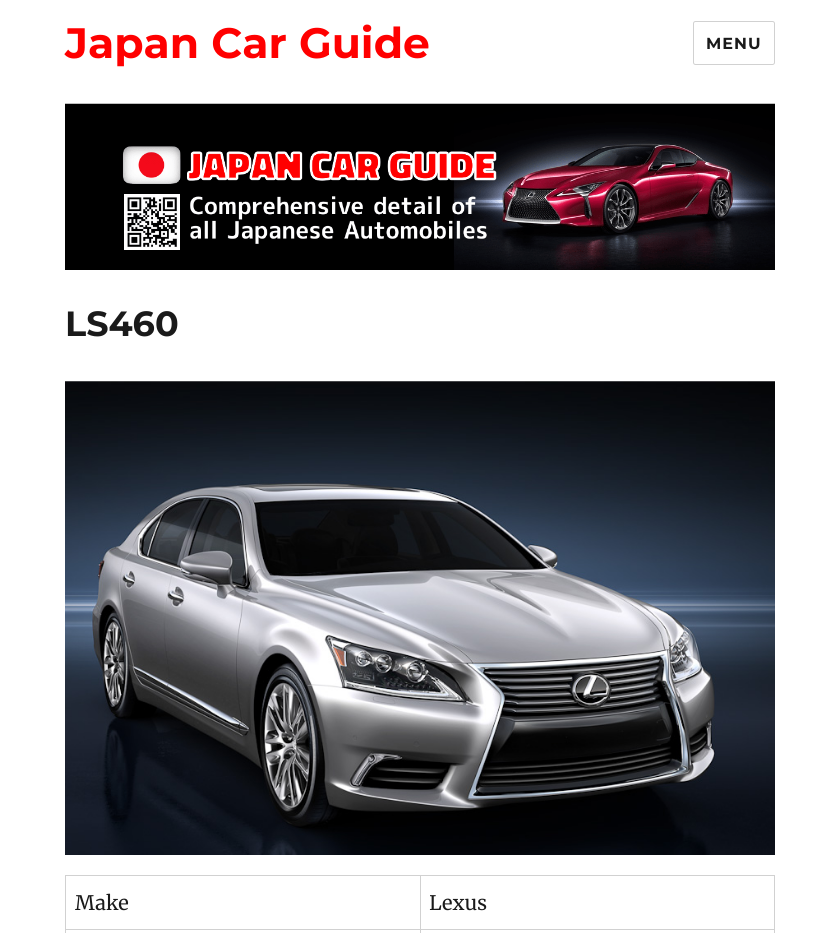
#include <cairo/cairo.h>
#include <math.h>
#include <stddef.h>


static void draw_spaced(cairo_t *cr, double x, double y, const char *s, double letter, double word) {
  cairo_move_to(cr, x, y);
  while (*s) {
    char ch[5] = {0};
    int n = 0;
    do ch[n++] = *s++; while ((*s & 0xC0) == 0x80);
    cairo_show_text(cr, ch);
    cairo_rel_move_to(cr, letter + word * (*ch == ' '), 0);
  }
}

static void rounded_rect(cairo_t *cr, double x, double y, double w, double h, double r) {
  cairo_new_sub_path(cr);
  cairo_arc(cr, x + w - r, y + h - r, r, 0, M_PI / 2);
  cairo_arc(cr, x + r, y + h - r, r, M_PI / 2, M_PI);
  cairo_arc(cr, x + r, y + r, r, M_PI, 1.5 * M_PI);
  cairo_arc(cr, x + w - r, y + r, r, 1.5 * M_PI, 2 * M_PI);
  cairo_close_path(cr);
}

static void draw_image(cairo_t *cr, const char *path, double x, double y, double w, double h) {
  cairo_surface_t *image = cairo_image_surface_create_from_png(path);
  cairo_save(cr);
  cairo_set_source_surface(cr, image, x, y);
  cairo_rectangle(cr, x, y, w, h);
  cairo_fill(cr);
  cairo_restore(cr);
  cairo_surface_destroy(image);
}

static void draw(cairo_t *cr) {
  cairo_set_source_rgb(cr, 1, 1, 1);
  cairo_paint(cr);
  rounded_rect(cr, 693.5, 21.5, 81, 43, 2);
  cairo_set_source_rgb(cr, 209 / 255.0, 209 / 255.0, 209 / 255.0);
  cairo_set_line_width(cr, 1);
  cairo_stroke(cr);
  draw_image(cr, "images/1.png", 65, 103, 710, 167);
  draw_image(cr, "images/2.png", 65, 381, 710, 474);
  cairo_rectangle(cr, 65, 875, 710, 1);
  cairo_fill(cr);
  cairo_rectangle(cr, 65, 875, 1, 58);
  cairo_fill(cr);
  cairo_rectangle(cr, 420, 929, 1, 4);
  cairo_fill(cr);
  cairo_rectangle(cr, 774, 875, 1, 58);
  cairo_fill(cr);
  cairo_rectangle(cr, 420, 929, 355, 1);
  cairo_fill(cr);
  cairo_rectangle(cr, 420, 875, 1, 55);
  cairo_fill(cr);
  cairo_rectangle(cr, 65, 929, 356, 1);
  cairo_fill(cr);
  cairo_select_font_face(cr, "Montserrat Thin", CAIRO_FONT_SLANT_NORMAL, CAIRO_FONT_WEIGHT_NORMAL);
  cairo_set_font_size(cr, 42.5);
  cairo_set_source_rgb(cr, 1, 0, 0);
  cairo_move_to(cr, 65, 58);
  cairo_show_text(cr, "Japan Car Guide");
  cairo_set_font_size(cr, 16);
  cairo_set_source_rgb(cr, 26 / 255.0, 26 / 255.0, 26 / 255.0);
  draw_spaced(cr, 706, 49, "MENU", 1, 0);
  cairo_set_font_size(cr, 35);
  cairo_move_to(cr, 65, 336);
  cairo_show_text(cr, "LS460");
  cairo_select_font_face(cr, "Merriweather", CAIRO_FONT_SLANT_NORMAL, CAIRO_FONT_WEIGHT_NORMAL);
  cairo_set_font_size(cr, 20);
  cairo_move_to(cr, 75, 910);
  cairo_show_text(cr, "Make");
  cairo_move_to(cr, 429, 910);
  cairo_show_text(cr, "Lexus");
}

int main(void) {
  cairo_surface_t *surface = cairo_image_surface_create(CAIRO_FORMAT_RGB24, 840, 933);
  cairo_t *cr = cairo_create(surface);
  cairo_font_options_t *options = cairo_font_options_create();
  cairo_font_options_set_hint_metrics(options, CAIRO_HINT_METRICS_OFF);
  cairo_font_options_set_hint_style(options, CAIRO_HINT_STYLE_NONE);
  cairo_set_font_options(cr, options);
  cairo_set_miter_limit(cr, 4);
  draw(cr);
  cairo_surface_write_to_png(surface, "out.png");
  cairo_font_options_destroy(options);
  cairo_destroy(cr);
  cairo_surface_destroy(surface);
  return 0;
}
